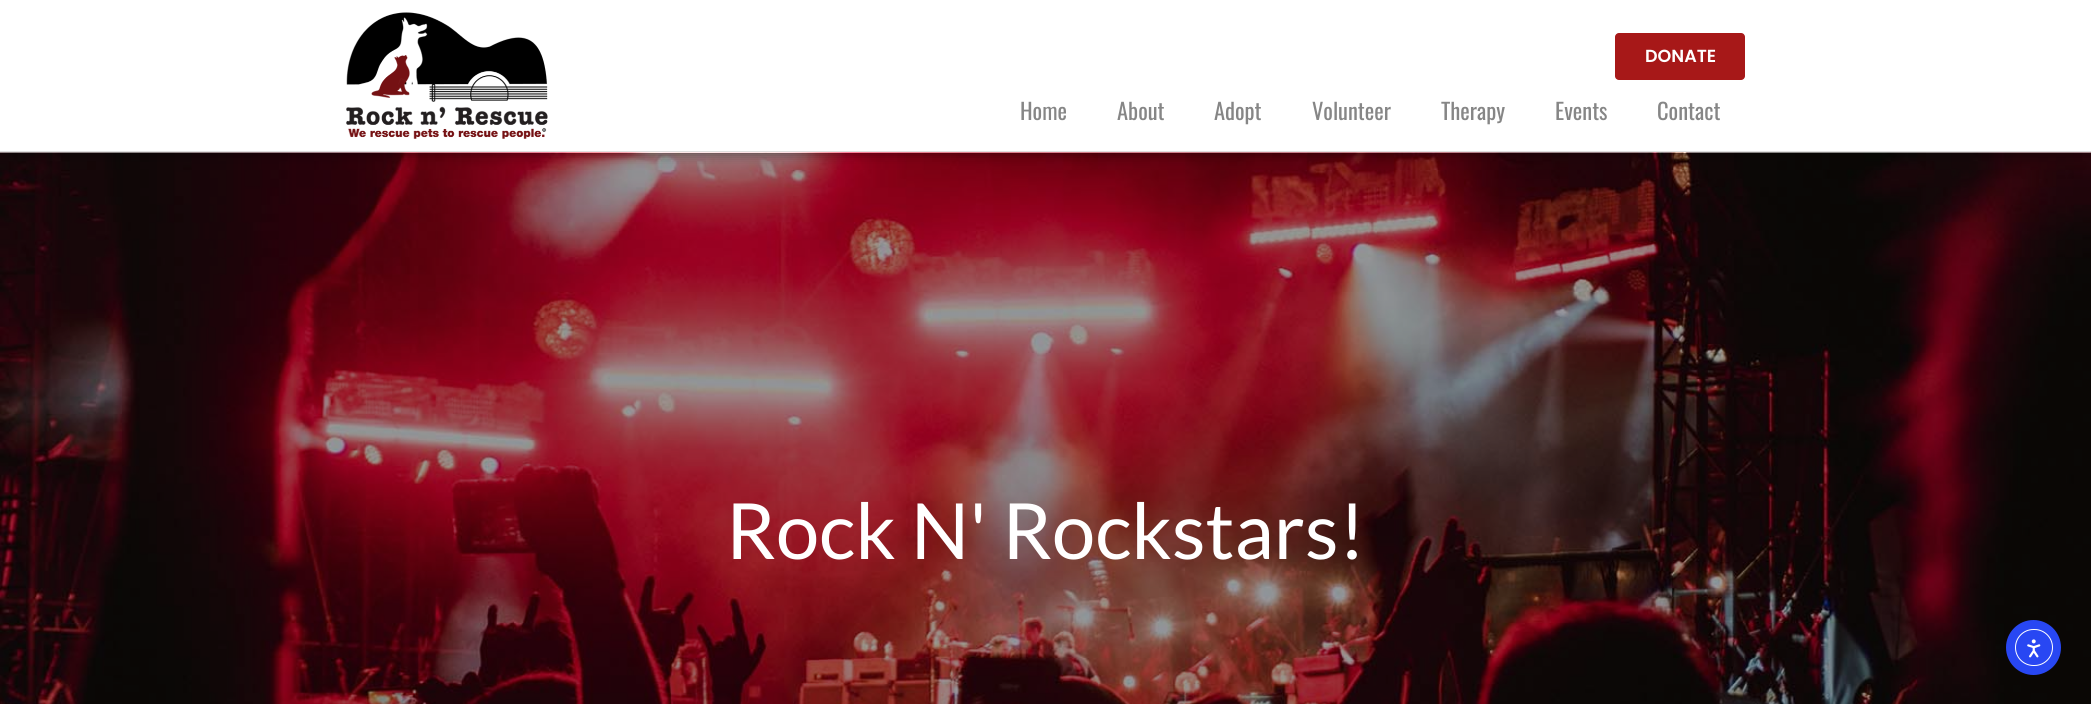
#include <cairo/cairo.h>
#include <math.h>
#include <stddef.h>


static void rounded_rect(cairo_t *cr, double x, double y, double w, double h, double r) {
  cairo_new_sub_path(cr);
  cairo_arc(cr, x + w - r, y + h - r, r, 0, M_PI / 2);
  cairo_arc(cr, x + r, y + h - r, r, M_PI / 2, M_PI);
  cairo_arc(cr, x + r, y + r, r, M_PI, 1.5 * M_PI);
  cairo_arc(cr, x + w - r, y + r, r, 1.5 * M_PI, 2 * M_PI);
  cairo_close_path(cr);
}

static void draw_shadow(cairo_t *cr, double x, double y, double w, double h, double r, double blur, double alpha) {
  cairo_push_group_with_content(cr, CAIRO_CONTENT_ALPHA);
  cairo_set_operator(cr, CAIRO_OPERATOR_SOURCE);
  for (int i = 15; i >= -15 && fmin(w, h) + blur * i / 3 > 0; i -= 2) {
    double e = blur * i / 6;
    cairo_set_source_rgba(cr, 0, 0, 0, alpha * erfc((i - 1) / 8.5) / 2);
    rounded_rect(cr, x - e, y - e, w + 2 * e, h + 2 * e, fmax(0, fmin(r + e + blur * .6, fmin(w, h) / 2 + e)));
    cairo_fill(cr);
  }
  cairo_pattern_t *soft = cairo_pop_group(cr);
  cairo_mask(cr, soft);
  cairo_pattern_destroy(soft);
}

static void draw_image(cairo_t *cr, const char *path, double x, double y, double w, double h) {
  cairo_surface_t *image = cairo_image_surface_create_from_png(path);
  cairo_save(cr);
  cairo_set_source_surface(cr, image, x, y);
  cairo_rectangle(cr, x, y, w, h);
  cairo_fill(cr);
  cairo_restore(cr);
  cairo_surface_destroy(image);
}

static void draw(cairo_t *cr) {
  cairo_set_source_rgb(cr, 1, 1, 1);
  cairo_paint(cr);
  draw_image(cr, "images/2.png", 0, 152, 2091, 552);
  cairo_save(cr);
  cairo_set_fill_rule(cr, CAIRO_FILL_RULE_EVEN_ODD);
  cairo_new_path(cr);
  cairo_move_to(cr, 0, 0);
  cairo_line_to(cr, 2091, 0);
  cairo_line_to(cr, 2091, 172);
  cairo_line_to(cr, 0, 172);
  cairo_close_path(cr);
  cairo_move_to(cr, 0, 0);
  cairo_line_to(cr, 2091, 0);
  cairo_line_to(cr, 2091, 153);
  cairo_line_to(cr, 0, 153);
  cairo_close_path(cr);
  cairo_clip(cr);
  cairo_set_source_rgb(cr, 0, 0, 0);
  draw_shadow(cr, 0, 0, 2091, 153, 0, 6, 0.5);
  cairo_restore(cr);
  cairo_set_source_rgb(cr, 224 / 255.0, 224 / 255.0, 224 / 255.0);
  cairo_rectangle(cr, 0, 151, 2091, 1);
  cairo_fill(cr);
  draw_image(cr, "images/1.png", 346, 12, 202, 127);
  cairo_set_source_rgb(cr, 167 / 255.0, 24 / 255.0, 24 / 255.0);
  rounded_rect(cr, 1615, 33, 130, 47, 4);
  cairo_fill(cr);
  cairo_set_source_rgb(cr, 40 / 255.0, 71 / 255.0, 243 / 255.0);
  cairo_arc(cr, 2033.5, 647.5, 27.5, 0, 2 * M_PI);
  cairo_fill(cr);
  rounded_rect(cr, 2015.5, 629.5, 37, 36, 18);
  cairo_set_source_rgb(cr, 1, 1, 1);
  cairo_set_line_width(cr, 1);
  cairo_stroke(cr);
  draw_image(cr, "images/3.png", 2027, 639, 14, 19);
  cairo_select_font_face(cr, "Poppins SemiBold", CAIRO_FONT_SLANT_NORMAL, CAIRO_FONT_WEIGHT_NORMAL);
  cairo_set_font_size(cr, 17.5);
  cairo_move_to(cr, 1645, 62);
  cairo_show_text(cr, "DONATE");
  cairo_select_font_face(cr, "Oswald", CAIRO_FONT_SLANT_NORMAL, CAIRO_FONT_WEIGHT_NORMAL);
  cairo_set_font_size(cr, 22.5);
  cairo_set_source_rgb(cr, 134 / 255.0, 134 / 255.0, 134 / 255.0);
  cairo_move_to(cr, 1020, 120);
  cairo_show_text(cr, "Home");
  cairo_move_to(cr, 1117, 120);
  cairo_show_text(cr, "About");
  cairo_move_to(cr, 1214, 120);
  cairo_show_text(cr, "Adopt");
  cairo_move_to(cr, 1312, 120);
  cairo_show_text(cr, "Volunteer");
  cairo_move_to(cr, 1441, 120);
  cairo_show_text(cr, "Therapy");
  cairo_move_to(cr, 1555, 120);
  cairo_show_text(cr, "Events");
  cairo_move_to(cr, 1657, 120);
  cairo_show_text(cr, "Contact");
  cairo_select_font_face(cr, "Lato", CAIRO_FONT_SLANT_NORMAL, CAIRO_FONT_WEIGHT_NORMAL);
  cairo_set_font_size(cr, 77.5);
  cairo_set_source_rgb(cr, 1, 1, 1);
  cairo_move_to(cr, 726, 559);
  cairo_show_text(cr, "Rock N' Rockstars!");
}

int main(void) {
  cairo_surface_t *surface = cairo_image_surface_create(CAIRO_FORMAT_RGB24, 2091, 704);
  cairo_t *cr = cairo_create(surface);
  cairo_font_options_t *options = cairo_font_options_create();
  cairo_font_options_set_hint_metrics(options, CAIRO_HINT_METRICS_OFF);
  cairo_font_options_set_hint_style(options, CAIRO_HINT_STYLE_NONE);
  cairo_set_font_options(cr, options);
  cairo_set_miter_limit(cr, 4);
  draw(cr);
  cairo_surface_write_to_png(surface, "out.png");
  cairo_font_options_destroy(options);
  cairo_destroy(cr);
  cairo_surface_destroy(surface);
  return 0;
}
